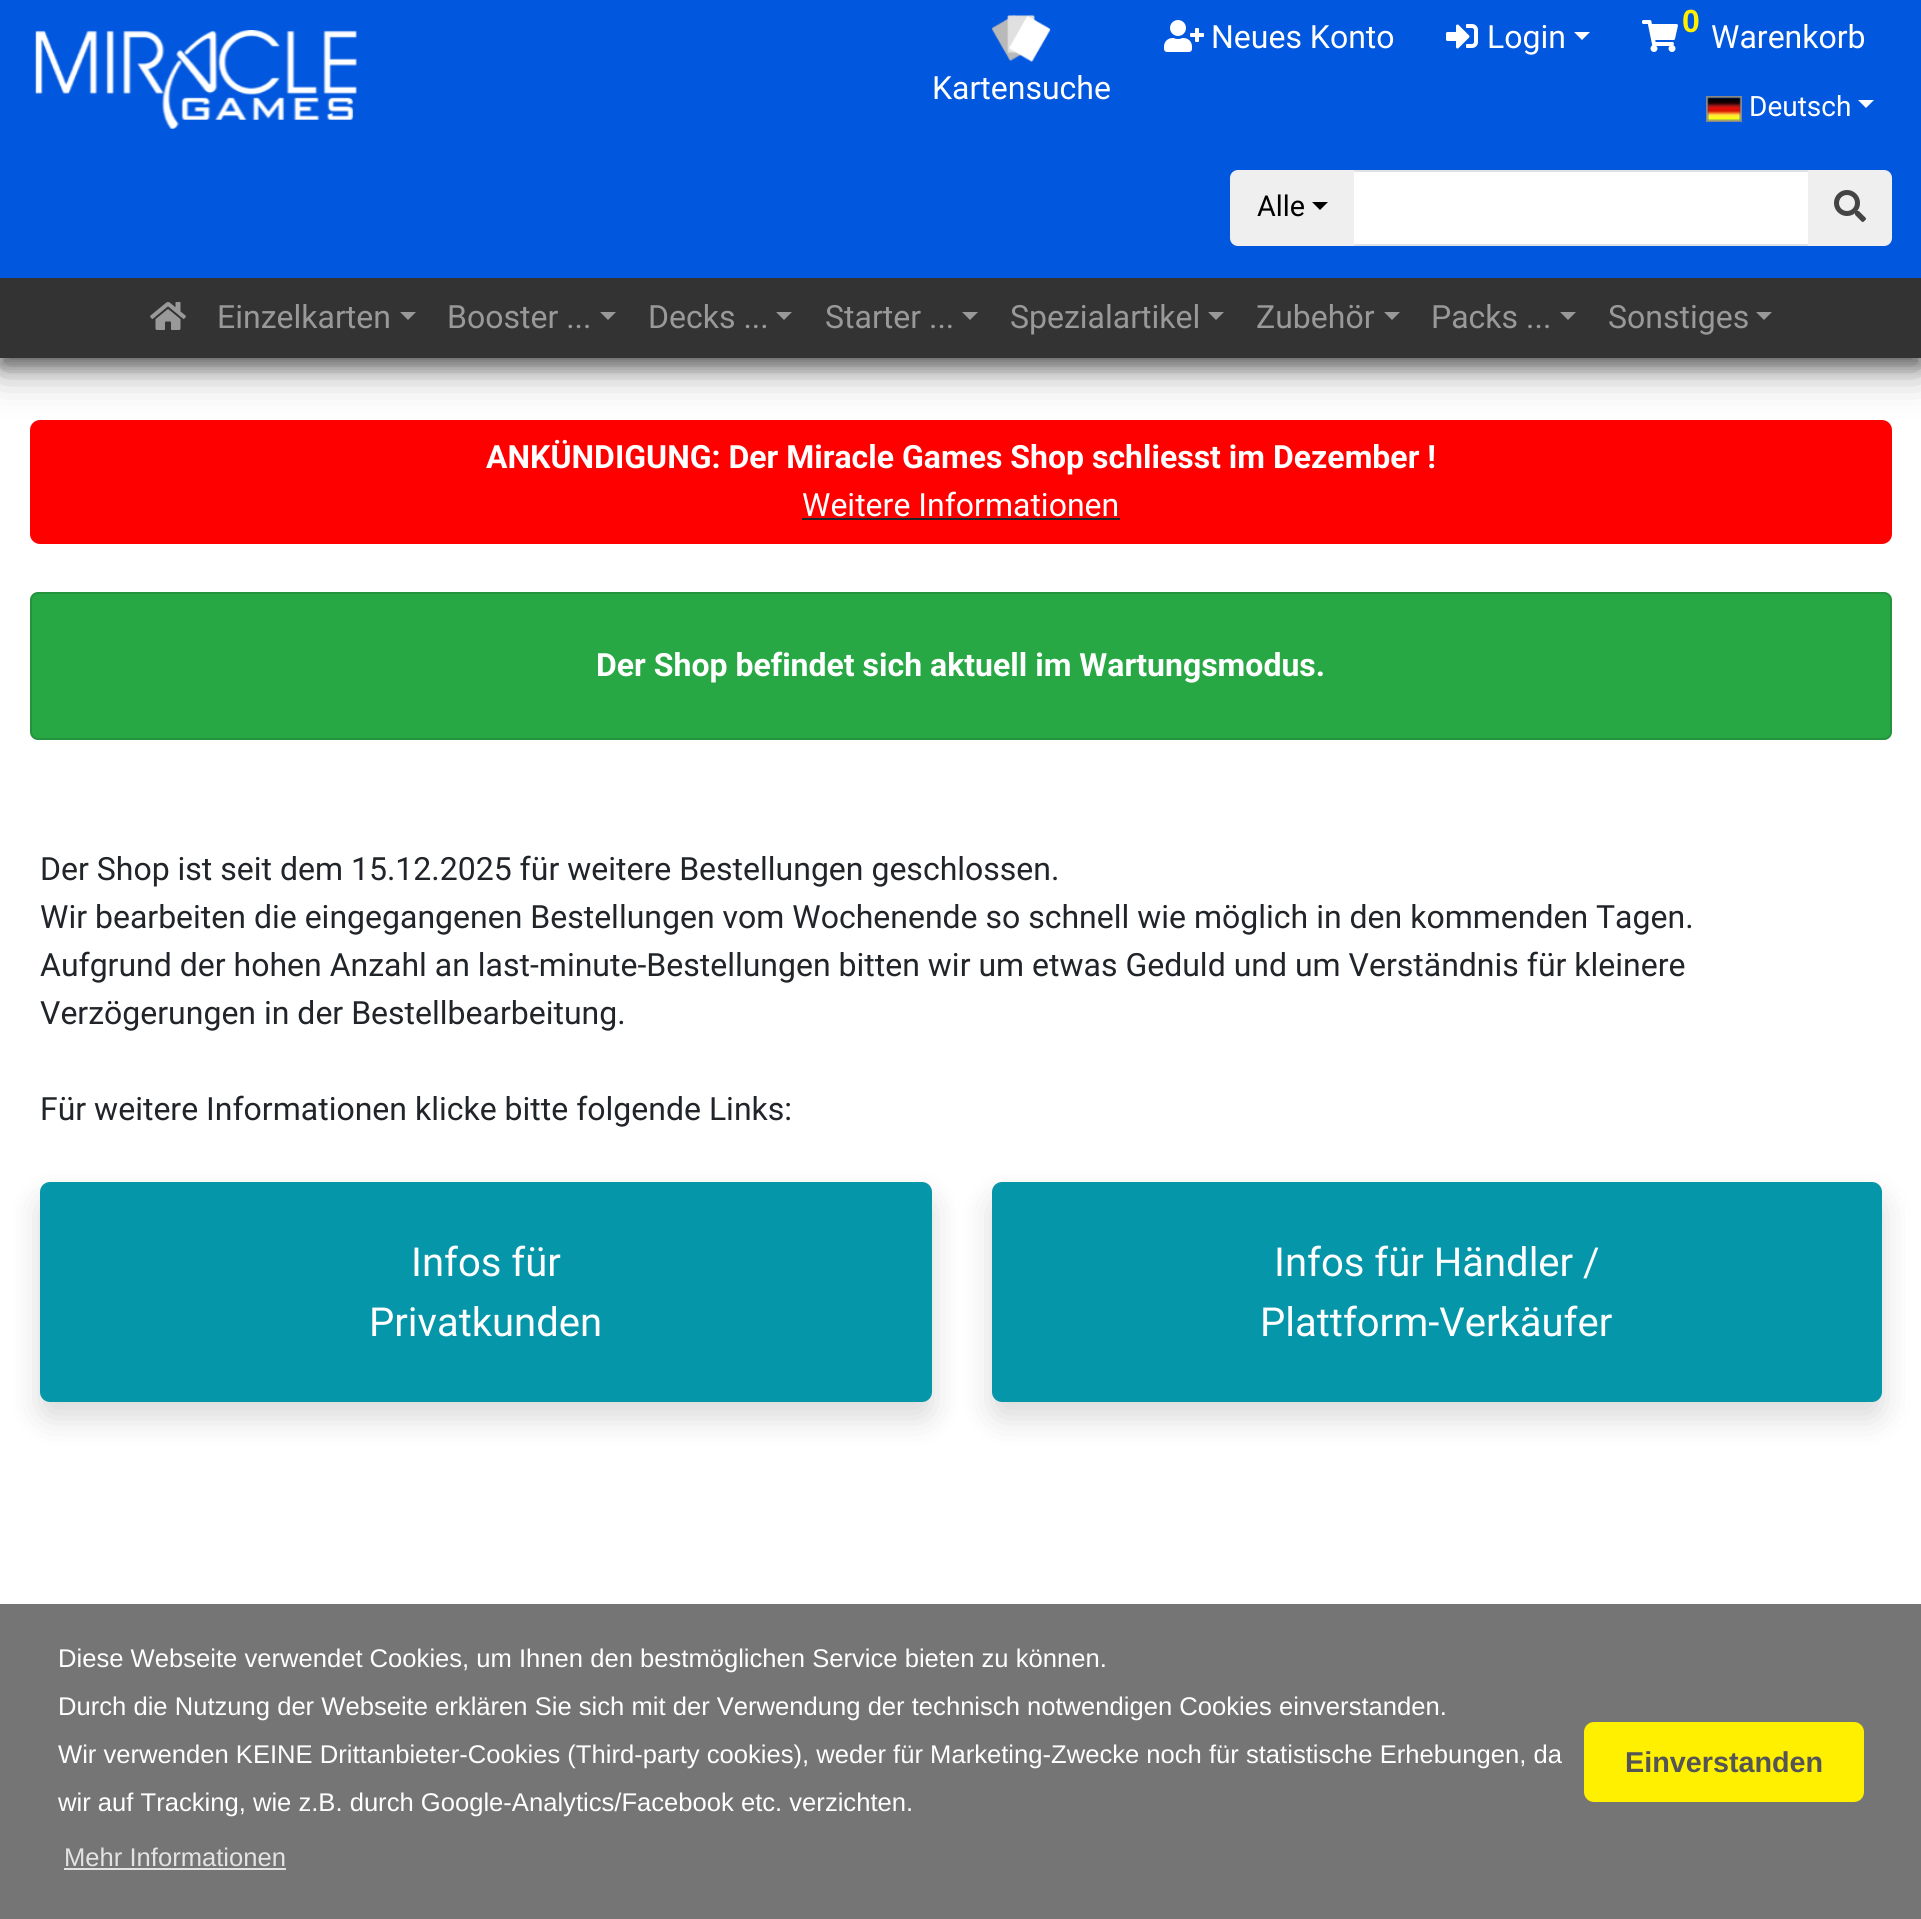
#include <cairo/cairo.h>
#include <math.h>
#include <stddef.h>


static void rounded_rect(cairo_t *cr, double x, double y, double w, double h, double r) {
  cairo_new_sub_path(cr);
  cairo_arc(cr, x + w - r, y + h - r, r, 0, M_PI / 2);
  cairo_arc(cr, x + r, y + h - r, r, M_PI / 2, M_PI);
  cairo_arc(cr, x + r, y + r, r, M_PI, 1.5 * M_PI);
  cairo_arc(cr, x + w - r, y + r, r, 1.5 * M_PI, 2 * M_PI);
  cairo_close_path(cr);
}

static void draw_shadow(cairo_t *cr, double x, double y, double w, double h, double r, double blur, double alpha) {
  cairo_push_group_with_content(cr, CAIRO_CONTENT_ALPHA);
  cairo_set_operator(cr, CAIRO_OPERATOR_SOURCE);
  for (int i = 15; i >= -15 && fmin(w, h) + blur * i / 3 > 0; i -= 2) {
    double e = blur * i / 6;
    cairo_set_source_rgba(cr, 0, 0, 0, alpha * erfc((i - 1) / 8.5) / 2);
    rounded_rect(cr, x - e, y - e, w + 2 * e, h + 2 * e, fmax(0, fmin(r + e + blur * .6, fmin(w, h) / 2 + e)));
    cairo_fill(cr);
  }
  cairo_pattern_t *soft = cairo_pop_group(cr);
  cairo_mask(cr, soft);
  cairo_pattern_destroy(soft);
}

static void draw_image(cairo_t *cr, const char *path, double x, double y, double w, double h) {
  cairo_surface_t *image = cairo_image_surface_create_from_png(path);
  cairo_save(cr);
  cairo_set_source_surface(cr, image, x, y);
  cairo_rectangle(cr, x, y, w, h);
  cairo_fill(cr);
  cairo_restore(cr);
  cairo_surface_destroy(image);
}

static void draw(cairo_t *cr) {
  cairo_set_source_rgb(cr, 1, 1, 1);
  cairo_paint(cr);
  cairo_set_source_rgb(cr, 1, 0, 0);
  rounded_rect(cr, 32, 422, 1858, 120, 8);
  cairo_fill_preserve(cr);
  cairo_set_line_width(cr, 4);
  cairo_stroke(cr);
  cairo_set_source_rgb(cr, 0, 0, 0);
  draw_shadow(cr, 0, 12, 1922, 358, 0, 20, 0.4);
  draw_shadow(cr, 0, 8, 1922, 358, 0, 8, 0.4);
  cairo_set_source_rgb(cr, 1 / 255.0, 87 / 255.0, 222 / 255.0);
  cairo_rectangle(cr, 0, 0, 1921, 278);
  cairo_fill(cr);
  draw_image(cr, "images/1.png", 35, 30, 322, 99);
  draw_image(cr, "images/2.png", 1164, 20, 40, 32);
  draw_image(cr, "images/3.png", 1446, 24, 32, 25);
  cairo_set_source_rgb(cr, 1, 1, 1);
  cairo_new_path(cr);
  cairo_move_to(cr, 1574, 32);
  cairo_line_to(cr, 1590, 32);
  cairo_line_to(cr, 1582, 40);
  cairo_close_path(cr);
  cairo_fill(cr);
  draw_image(cr, "images/4.png", 1642, 20, 36, 32);
  cairo_rectangle(cr, 1707, 97, 34, 24);
  cairo_set_source_rgb(cr, 136 / 255.0, 136 / 255.0, 136 / 255.0);
  cairo_set_line_width(cr, 2);
  cairo_stroke(cr);
  draw_image(cr, "images/5.png", 1707, 97, 34, 24);
  cairo_set_source_rgb(cr, 1, 1, 1);
  cairo_new_path(cr);
  cairo_move_to(cr, 1858, 100);
  cairo_line_to(cr, 1874, 100);
  cairo_line_to(cr, 1866, 108);
  cairo_close_path(cr);
  cairo_fill(cr);
  draw_image(cr, "images/6.png", 991, 14, 60, 48);
  cairo_rectangle(cr, 1353, 171, 456, 74);
  cairo_fill_preserve(cr);
  cairo_set_source_rgb(cr, 222 / 255.0, 226 / 255.0, 230 / 255.0);
  cairo_stroke(cr);
  cairo_set_source_rgb(cr, 239 / 255.0, 239 / 255.0, 239 / 255.0);
  cairo_new_path(cr);
  cairo_move_to(cr, 1238, 170);
  cairo_line_to(cr, 1354, 170);
  cairo_line_to(cr, 1354, 246);
  cairo_line_to(cr, 1238, 246);
  cairo_curve_to(cr, 1233.5, 246, 1230, 242.5, 1230, 238);
  cairo_line_to(cr, 1230, 178);
  cairo_curve_to(cr, 1230, 173.5, 1233.5, 170, 1238, 170);
  cairo_close_path(cr);
  cairo_fill(cr);
  cairo_set_source_rgb(cr, 0, 0, 0);
  cairo_new_path(cr);
  cairo_move_to(cr, 1312, 202);
  cairo_line_to(cr, 1328, 202);
  cairo_line_to(cr, 1320, 210);
  cairo_close_path(cr);
  cairo_fill(cr);
  cairo_set_source_rgb(cr, 239 / 255.0, 239 / 255.0, 239 / 255.0);
  cairo_new_path(cr);
  cairo_move_to(cr, 1808, 170);
  cairo_line_to(cr, 1884, 170);
  cairo_curve_to(cr, 1888.5, 170, 1892, 173.5, 1892, 178);
  cairo_line_to(cr, 1892, 238);
  cairo_curve_to(cr, 1892, 242.5, 1888.5, 246, 1884, 246);
  cairo_line_to(cr, 1808, 246);
  cairo_close_path(cr);
  cairo_fill(cr);
  draw_image(cr, "images/7.png", 1834, 190, 32, 32);
  cairo_set_source_rgb(cr, 51 / 255.0, 51 / 255.0, 51 / 255.0);
  cairo_rectangle(cr, 0, 278, 1921, 80);
  cairo_fill(cr);
  draw_image(cr, "images/8.png", 150, 302, 36, 28);
  cairo_set_source_rgb(cr, 153 / 255.0, 153 / 255.0, 153 / 255.0);
  cairo_new_path(cr);
  cairo_move_to(cr, 400, 312);
  cairo_line_to(cr, 416, 312);
  cairo_line_to(cr, 408, 320);
  cairo_close_path(cr);
  cairo_fill(cr);
  cairo_new_path(cr);
  cairo_move_to(cr, 600, 312);
  cairo_line_to(cr, 616, 312);
  cairo_line_to(cr, 608, 320);
  cairo_close_path(cr);
  cairo_fill(cr);
  cairo_new_path(cr);
  cairo_move_to(cr, 776, 312);
  cairo_line_to(cr, 792, 312);
  cairo_line_to(cr, 784, 320);
  cairo_close_path(cr);
  cairo_fill(cr);
  cairo_new_path(cr);
  cairo_move_to(cr, 962, 312);
  cairo_line_to(cr, 978, 312);
  cairo_line_to(cr, 970, 320);
  cairo_close_path(cr);
  cairo_fill(cr);
  cairo_new_path(cr);
  cairo_move_to(cr, 1208, 312);
  cairo_line_to(cr, 1224, 312);
  cairo_line_to(cr, 1216, 320);
  cairo_close_path(cr);
  cairo_fill(cr);
  cairo_new_path(cr);
  cairo_move_to(cr, 1384, 312);
  cairo_line_to(cr, 1400, 312);
  cairo_line_to(cr, 1392, 320);
  cairo_close_path(cr);
  cairo_fill(cr);
  cairo_new_path(cr);
  cairo_move_to(cr, 1560, 312);
  cairo_line_to(cr, 1576, 312);
  cairo_line_to(cr, 1568, 320);
  cairo_close_path(cr);
  cairo_fill(cr);
  cairo_new_path(cr);
  cairo_move_to(cr, 1756, 312);
  cairo_line_to(cr, 1772, 312);
  cairo_line_to(cr, 1764, 320);
  cairo_close_path(cr);
  cairo_fill(cr);
  cairo_set_source_rgb(cr, 33 / 255.0, 37 / 255.0, 41 / 255.0);
  cairo_rectangle(cr, 802, 518, 318, 2);
  cairo_fill(cr);
  cairo_set_source_rgb(cr, 40 / 255.0, 167 / 255.0, 69 / 255.0);
  rounded_rect(cr, 30, 592, 1862, 148, 8);
  cairo_fill(cr);
  rounded_rect(cr, 31, 593, 1860, 146, 7);
  cairo_set_source_rgba(cr, 0, 0, 0, 0.12);
  cairo_stroke(cr);
  cairo_set_source_rgb(cr, 0, 0, 0);
  draw_shadow(cr, 40, 1198, 892, 220, 10, 16, 0.15);
  cairo_set_source_rgb(cr, 6 / 255.0, 150 / 255.0, 170 / 255.0);
  rounded_rect(cr, 40, 1182, 892, 220, 10);
  cairo_fill(cr);
  cairo_set_source_rgb(cr, 0, 0, 0);
  draw_shadow(cr, 992, 1198, 890, 220, 10, 16, 0.15);
  cairo_set_source_rgb(cr, 6 / 255.0, 150 / 255.0, 170 / 255.0);
  rounded_rect(cr, 992, 1182, 890, 220, 10);
  cairo_fill(cr);
  cairo_set_source_rgb(cr, 117 / 255.0, 117 / 255.0, 117 / 255.0);
  cairo_rectangle(cr, 0, 1604, 1921, 315);
  cairo_fill(cr);
  cairo_set_source_rgb(cr, 227 / 255.0, 227 / 255.0, 227 / 255.0);
  cairo_rectangle(cr, 64, 1868, 222, 2);
  cairo_fill(cr);
  cairo_set_source_rgb(cr, 1, 240 / 255.0, 0);
  rounded_rect(cr, 1584, 1722, 280, 80, 10);
  cairo_fill(cr);
  cairo_select_font_face(cr, "Roboto", CAIRO_FONT_SLANT_NORMAL, CAIRO_FONT_WEIGHT_NORMAL);
  cairo_set_font_size(cr, 32);
  cairo_set_source_rgb(cr, 1, 1, 1);
  cairo_move_to(cr, 1211, 48);
  cairo_show_text(cr, "Neues Konto");
  cairo_move_to(cr, 1487, 48);
  cairo_show_text(cr, "Login");
  cairo_select_font_face(cr, "Liberation Sans", CAIRO_FONT_SLANT_NORMAL, CAIRO_FONT_WEIGHT_BOLD);
  cairo_set_source_rgb(cr, 1, 240 / 255.0, 0);
  cairo_move_to(cr, 1682, 32);
  cairo_show_text(cr, "0");
  cairo_select_font_face(cr, "Roboto", CAIRO_FONT_SLANT_NORMAL, CAIRO_FONT_WEIGHT_NORMAL);
  cairo_set_source_rgb(cr, 1, 1, 1);
  cairo_move_to(cr, 1711, 48);
  cairo_show_text(cr, "Warenkorb");
  cairo_set_font_size(cr, 28);
  cairo_move_to(cr, 1749, 116);
  cairo_show_text(cr, "Deutsch");
  cairo_set_font_size(cr, 32);
  cairo_move_to(cr, 932, 99);
  cairo_show_text(cr, "Kartensuche");
  cairo_set_font_size(cr, 28.75);
  cairo_set_source_rgb(cr, 0, 0, 0);
  cairo_move_to(cr, 1257, 216);
  cairo_show_text(cr, "Alle");
  cairo_set_font_size(cr, 32);
  cairo_set_source_rgb(cr, 153 / 255.0, 153 / 255.0, 153 / 255.0);
  cairo_move_to(cr, 217, 328);
  cairo_show_text(cr, "Einzelkarten");
  cairo_move_to(cr, 447, 328);
  cairo_show_text(cr, "Booster ...");
  cairo_move_to(cr, 648, 328);
  cairo_show_text(cr, "Decks ...");
  cairo_move_to(cr, 825, 328);
  cairo_show_text(cr, "Starter ...");
  cairo_move_to(cr, 1010, 328);
  cairo_show_text(cr, "Spezialartikel");
  cairo_move_to(cr, 1256, 328);
  cairo_show_text(cr, "Zubehör");
  cairo_move_to(cr, 1431, 328);
  cairo_show_text(cr, "Packs ...");
  cairo_move_to(cr, 1608, 328);
  cairo_show_text(cr, "Sonstiges");
  cairo_select_font_face(cr, "Roboto", CAIRO_FONT_SLANT_NORMAL, CAIRO_FONT_WEIGHT_BOLD);
  cairo_set_source_rgb(cr, 1, 1, 1);
  cairo_move_to(cr, 486, 468);
  cairo_show_text(cr, "ANKÜNDIGUNG: Der Miracle Games Shop schliesst im Dezember !");
  cairo_select_font_face(cr, "Roboto", CAIRO_FONT_SLANT_NORMAL, CAIRO_FONT_WEIGHT_NORMAL);
  cairo_move_to(cr, 802, 516);
  cairo_show_text(cr, "Weitere Informationen");
  cairo_select_font_face(cr, "Roboto", CAIRO_FONT_SLANT_NORMAL, CAIRO_FONT_WEIGHT_BOLD);
  cairo_move_to(cr, 596, 676);
  cairo_show_text(cr, "Der Shop befindet sich aktuell im Wartungsmodus.");
  cairo_select_font_face(cr, "Roboto", CAIRO_FONT_SLANT_NORMAL, CAIRO_FONT_WEIGHT_NORMAL);
  cairo_set_source_rgb(cr, 33 / 255.0, 37 / 255.0, 41 / 255.0);
  cairo_move_to(cr, 40, 880);
  cairo_show_text(cr, "Der Shop ist seit dem 15.12.2025 für weitere Bestellungen geschlossen.");
  cairo_move_to(cr, 40, 928);
  cairo_show_text(cr, "Wir bearbeiten die eingegangenen Bestellungen vom Wochenende so schnell wie möglich in den kommenden Tagen.");
  cairo_move_to(cr, 40, 976);
  cairo_show_text(cr, "Aufgrund der hohen Anzahl an last-minute-Bestellungen bitten wir um etwas Geduld und um Verständnis für kleinere");
  cairo_move_to(cr, 40, 1024);
  cairo_show_text(cr, "Verzögerungen in der Bestellbearbeitung.");
  cairo_move_to(cr, 40, 1120);
  cairo_show_text(cr, "Für weitere Informationen klicke bitte folgende Links:");
  cairo_set_font_size(cr, 40);
  cairo_set_source_rgb(cr, 1, 1, 1);
  cairo_move_to(cr, 411, 1276);
  cairo_show_text(cr, "Infos für");
  cairo_move_to(cr, 369, 1336);
  cairo_show_text(cr, "Privatkunden");
  cairo_move_to(cr, 1274, 1276);
  cairo_show_text(cr, "Infos für Händler /");
  cairo_move_to(cr, 1260, 1336);
  cairo_show_text(cr, "Plattform-Verkäufer");
  cairo_select_font_face(cr, "Liberation Sans", CAIRO_FONT_SLANT_NORMAL, CAIRO_FONT_WEIGHT_NORMAL);
  cairo_set_font_size(cr, 25.6);
  cairo_move_to(cr, 58, 1667);
  cairo_show_text(cr, "Diese Webseite verwendet Cookies, um Ihnen den bestmöglichen Service bieten zu können.");
  cairo_move_to(cr, 58, 1715);
  cairo_show_text(cr, "Durch die Nutzung der Webseite erklären Sie sich mit der Verwendung der technisch notwendigen Cookies einverstanden.");
  cairo_move_to(cr, 58, 1763);
  cairo_show_text(cr, "Wir verwenden KEINE Drittanbieter-Cookies (Third-party cookies), weder für Marketing-Zwecke noch für statistische Erhebungen, da");
  cairo_move_to(cr, 58, 1811);
  cairo_show_text(cr, "wir auf Tracking, wie z.B. durch Google-Analytics/Facebook etc. verzichten.");
  cairo_set_source_rgb(cr, 227 / 255.0, 227 / 255.0, 227 / 255.0);
  cairo_move_to(cr, 64, 1866);
  cairo_show_text(cr, "Mehr Informationen");
  cairo_select_font_face(cr, "Liberation Sans", CAIRO_FONT_SLANT_NORMAL, CAIRO_FONT_WEIGHT_BOLD);
  cairo_set_font_size(cr, 28.75);
  cairo_set_source_rgb(cr, 85 / 255.0, 85 / 255.0, 85 / 255.0);
  cairo_move_to(cr, 1625, 1772);
  cairo_show_text(cr, "Einverstanden");
}

int main(void) {
  cairo_surface_t *surface = cairo_image_surface_create(CAIRO_FORMAT_RGB24, 1921, 1919);
  cairo_t *cr = cairo_create(surface);
  cairo_font_options_t *options = cairo_font_options_create();
  cairo_font_options_set_hint_metrics(options, CAIRO_HINT_METRICS_OFF);
  cairo_font_options_set_hint_style(options, CAIRO_HINT_STYLE_NONE);
  cairo_set_font_options(cr, options);
  cairo_set_miter_limit(cr, 4);
  draw(cr);
  cairo_surface_write_to_png(surface, "out.png");
  cairo_font_options_destroy(options);
  cairo_destroy(cr);
  cairo_surface_destroy(surface);
  return 0;
}
